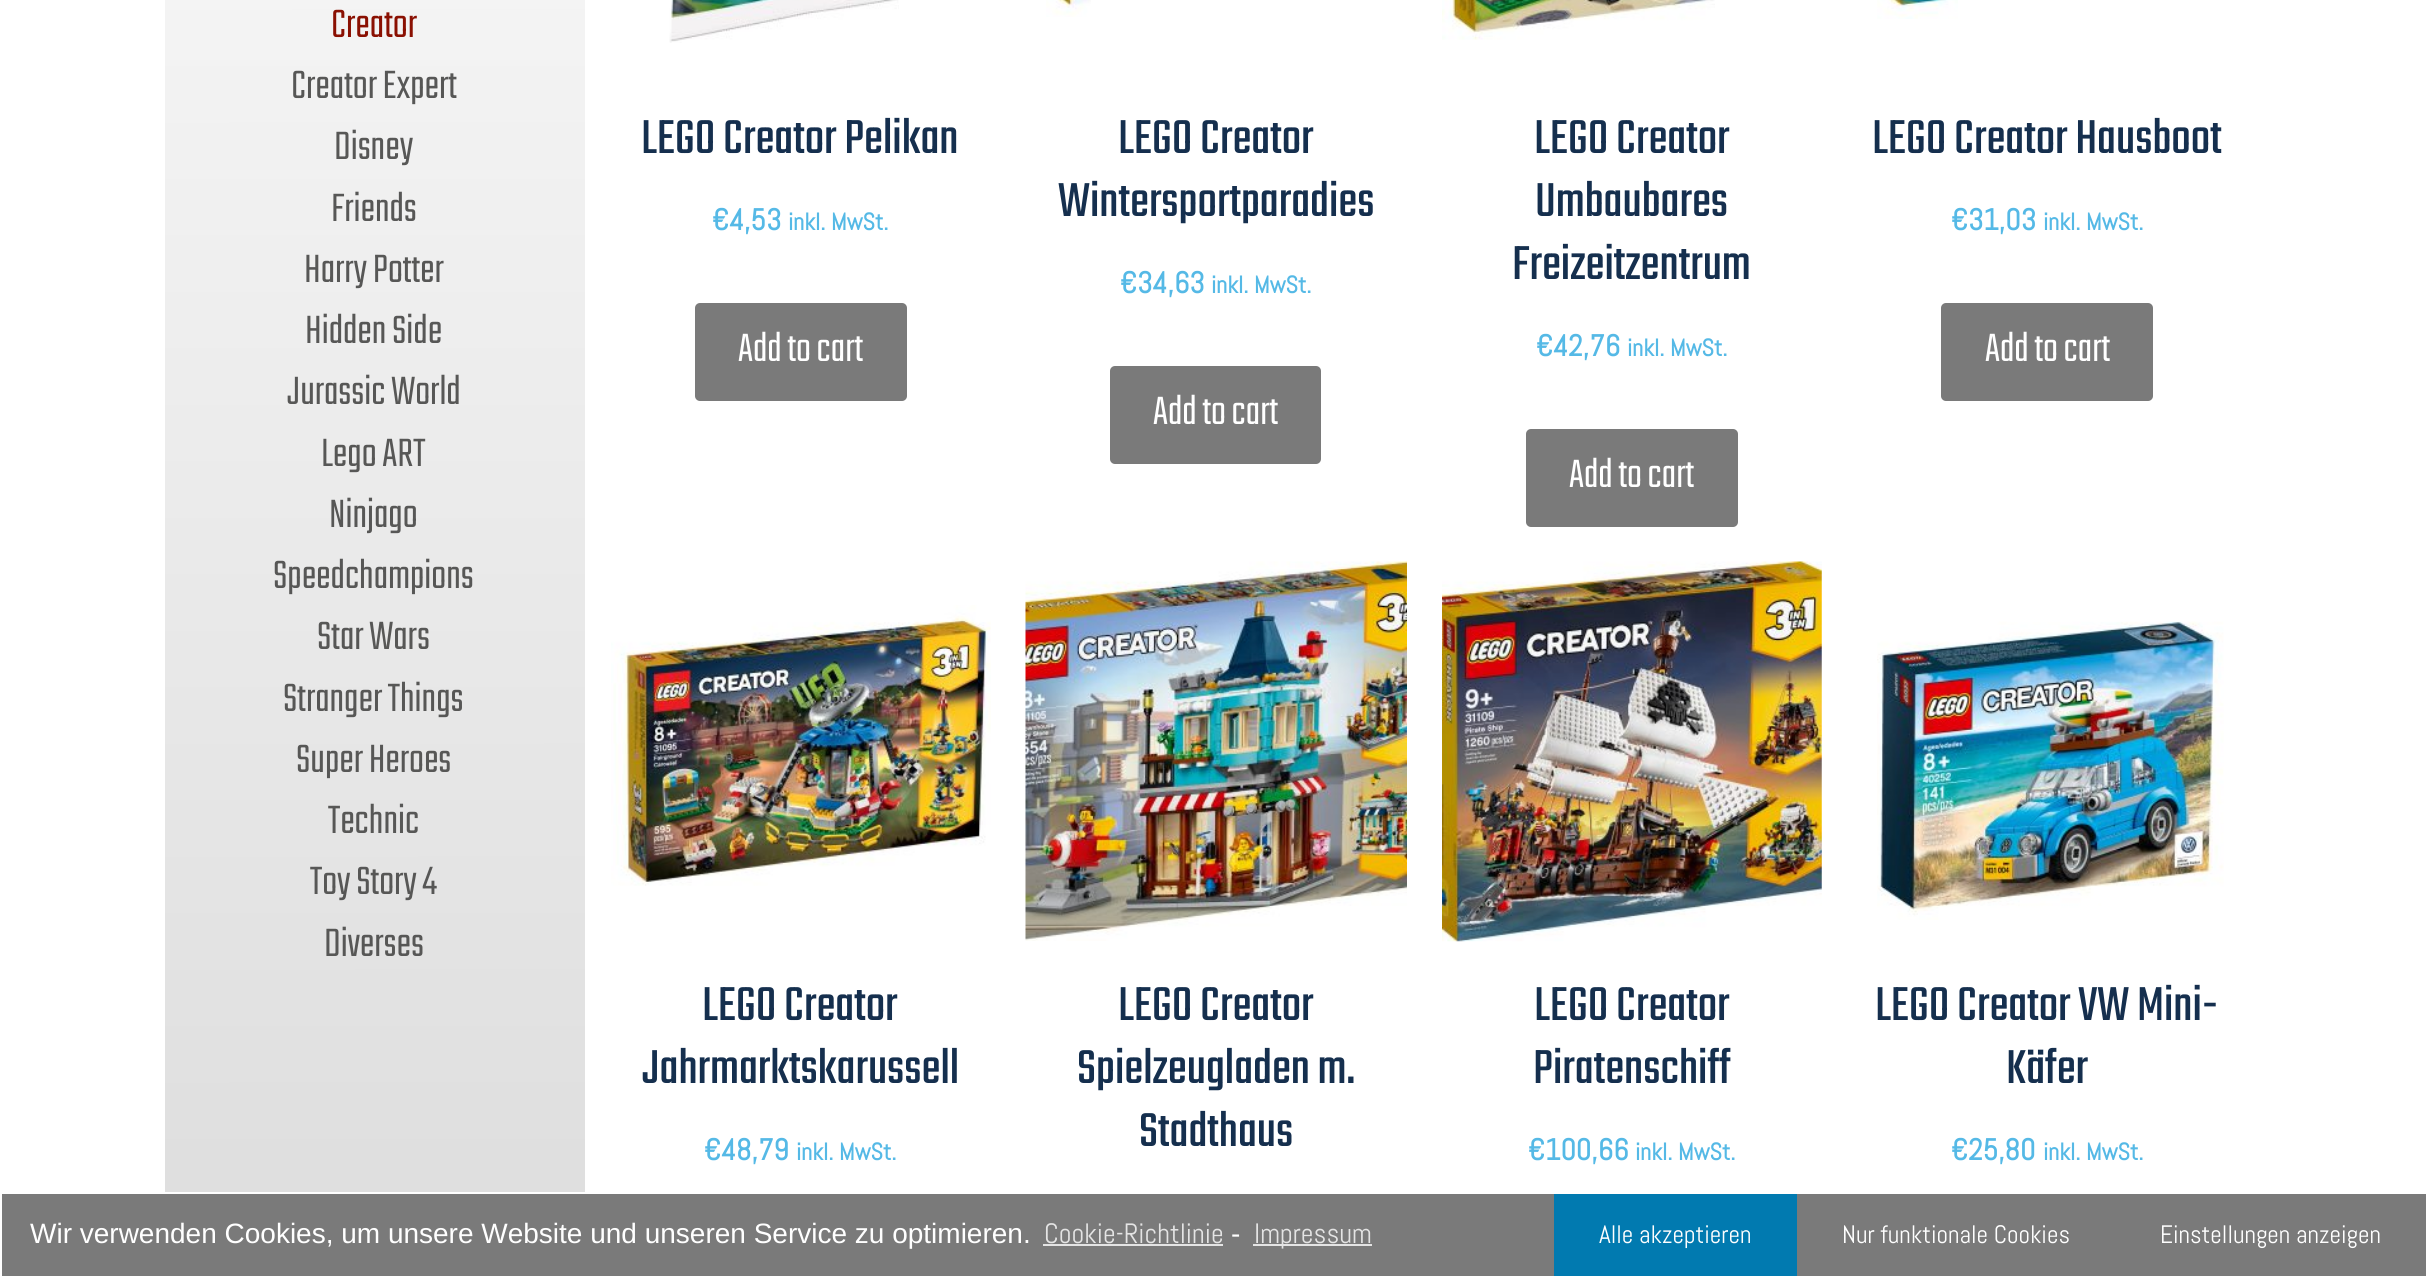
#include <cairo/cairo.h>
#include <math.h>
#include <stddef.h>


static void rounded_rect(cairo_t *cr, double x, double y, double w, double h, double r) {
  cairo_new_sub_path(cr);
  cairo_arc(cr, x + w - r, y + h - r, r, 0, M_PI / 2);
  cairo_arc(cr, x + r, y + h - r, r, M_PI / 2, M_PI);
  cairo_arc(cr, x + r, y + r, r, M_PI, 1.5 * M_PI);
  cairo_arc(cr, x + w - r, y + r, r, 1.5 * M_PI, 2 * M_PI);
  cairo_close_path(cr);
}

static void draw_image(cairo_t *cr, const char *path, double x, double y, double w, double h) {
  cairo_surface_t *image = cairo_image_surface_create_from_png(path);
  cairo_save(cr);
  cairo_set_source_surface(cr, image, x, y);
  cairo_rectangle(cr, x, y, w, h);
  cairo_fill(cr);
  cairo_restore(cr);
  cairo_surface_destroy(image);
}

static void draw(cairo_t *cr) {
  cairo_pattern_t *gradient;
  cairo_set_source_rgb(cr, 1, 1, 1);
  cairo_paint(cr);
  gradient = cairo_pattern_create_linear(374, -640, 375, 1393);
  cairo_pattern_add_color_stop_rgba(gradient, 0, 1, 1, 1, 1);
  cairo_pattern_add_color_stop_rgba(gradient, 1, 219 / 255.0, 219 / 255.0, 219 / 255.0, 1);
  cairo_set_source(cr, gradient);
  cairo_pattern_destroy(gradient);
  cairo_rectangle(cr, 165, 0, 420, 1192);
  cairo_fill(cr);
  draw_image(cr, "images/1.png", 669, 0, 230, 43);
  cairo_set_source_rgb(cr, 122 / 255.0, 122 / 255.0, 122 / 255.0);
  rounded_rect(cr, 695, 303, 212, 98, 5);
  cairo_fill(cr);
  draw_image(cr, "images/2.png", 1046, 0, 45, 17);
  rounded_rect(cr, 1110, 366, 211, 98, 5);
  cairo_fill(cr);
  draw_image(cr, "images/3.png", 1442, 0, 273, 40);
  rounded_rect(cr, 1526, 429, 212, 98, 5);
  cairo_fill(cr);
  draw_image(cr, "images/4.png", 1877, 0, 81, 19);
  rounded_rect(cr, 1941, 303, 212, 98, 5);
  cairo_fill(cr);
  draw_image(cr, "images/5.png", 611, 605, 380, 281);
  draw_image(cr, "images/6.png", 1025, 561, 382, 380);
  draw_image(cr, "images/7.png", 1442, 561, 380, 381);
  draw_image(cr, "images/8.png", 1877, 621, 347, 299);
  cairo_rectangle(cr, 2, 1194, 2424, 82);
  cairo_fill(cr);
  cairo_set_source_rgb(cr, 228 / 255.0, 228 / 255.0, 228 / 255.0);
  cairo_rectangle(cr, 1043, 1244, 180, 2);
  cairo_fill(cr);
  cairo_rectangle(cr, 1253, 1244, 119, 2);
  cairo_fill(cr);
  cairo_set_source_rgb(cr, 1 / 255.0, 122 / 255.0, 176 / 255.0);
  cairo_rectangle(cr, 1554, 1194, 243, 82);
  cairo_fill(cr);
  cairo_select_font_face(cr, "Teko Light", CAIRO_FONT_SLANT_NORMAL, CAIRO_FONT_WEIGHT_NORMAL);
  cairo_set_font_size(cr, 43.75);
  cairo_set_source_rgb(cr, 138 / 255.0, 16 / 255.0, 2 / 255.0);
  cairo_move_to(cr, 331, 37);
  cairo_show_text(cr, "Creator");
  cairo_set_source_rgb(cr, 87 / 255.0, 87 / 255.0, 86 / 255.0);
  cairo_move_to(cr, 291, 98);
  cairo_show_text(cr, "Creator Expert");
  cairo_move_to(cr, 334, 159);
  cairo_show_text(cr, "Disney");
  cairo_move_to(cr, 331, 221);
  cairo_show_text(cr, "Friends");
  cairo_move_to(cr, 304, 282);
  cairo_show_text(cr, "Harry Potter");
  cairo_move_to(cr, 305, 343);
  cairo_show_text(cr, "Hidden Side");
  cairo_move_to(cr, 287, 404);
  cairo_show_text(cr, "Jurassic World");
  cairo_move_to(cr, 321, 466);
  cairo_show_text(cr, "Lego ART");
  cairo_move_to(cr, 329, 527);
  cairo_show_text(cr, "Ninjago");
  cairo_move_to(cr, 273, 588);
  cairo_show_text(cr, "Speedchampions");
  cairo_move_to(cr, 317, 649);
  cairo_show_text(cr, "Star Wars");
  cairo_move_to(cr, 283, 711);
  cairo_show_text(cr, "Stranger Things");
  cairo_move_to(cr, 296, 772);
  cairo_show_text(cr, "Super Heroes");
  cairo_move_to(cr, 328, 833);
  cairo_show_text(cr, "Technic");
  cairo_move_to(cr, 310, 894);
  cairo_show_text(cr, "Toy Story 4");
  cairo_move_to(cr, 324, 956);
  cairo_show_text(cr, "Diverses");
  cairo_select_font_face(cr, "Teko", CAIRO_FONT_SLANT_NORMAL, CAIRO_FONT_WEIGHT_NORMAL);
  cairo_set_font_size(cr, 52.5);
  cairo_set_source_rgb(cr, 21 / 255.0, 47 / 255.0, 78 / 255.0);
  cairo_move_to(cr, 641, 153);
  cairo_show_text(cr, "LEGO Creator Pelikan");
  cairo_select_font_face(cr, "Abel", CAIRO_FONT_SLANT_NORMAL, CAIRO_FONT_WEIGHT_BOLD);
  cairo_set_font_size(cr, 30);
  cairo_set_source_rgb(cr, 85 / 255.0, 185 / 255.0, 230 / 255.0);
  cairo_move_to(cr, 712, 230);
  cairo_show_text(cr, "€4,53");
  cairo_set_font_size(cr, 24);
  cairo_move_to(cr, 788, 230);
  cairo_show_text(cr, "inkl. MwSt.");
  cairo_select_font_face(cr, "Teko Light", CAIRO_FONT_SLANT_NORMAL, CAIRO_FONT_WEIGHT_NORMAL);
  cairo_set_font_size(cr, 43.75);
  cairo_set_source_rgb(cr, 1, 1, 1);
  cairo_move_to(cr, 738, 361);
  cairo_show_text(cr, "Add to cart");
  cairo_select_font_face(cr, "Teko", CAIRO_FONT_SLANT_NORMAL, CAIRO_FONT_WEIGHT_NORMAL);
  cairo_set_font_size(cr, 52.5);
  cairo_set_source_rgb(cr, 21 / 255.0, 47 / 255.0, 78 / 255.0);
  cairo_move_to(cr, 1118, 153);
  cairo_show_text(cr, "LEGO Creator");
  cairo_move_to(cr, 1058, 216);
  cairo_show_text(cr, "Wintersportparadies");
  cairo_select_font_face(cr, "Abel", CAIRO_FONT_SLANT_NORMAL, CAIRO_FONT_WEIGHT_BOLD);
  cairo_set_font_size(cr, 30);
  cairo_set_source_rgb(cr, 85 / 255.0, 185 / 255.0, 230 / 255.0);
  cairo_move_to(cr, 1120, 293);
  cairo_show_text(cr, "€34,63");
  cairo_set_font_size(cr, 24);
  cairo_move_to(cr, 1211, 293);
  cairo_show_text(cr, "inkl. MwSt.");
  cairo_select_font_face(cr, "Teko Light", CAIRO_FONT_SLANT_NORMAL, CAIRO_FONT_WEIGHT_NORMAL);
  cairo_set_font_size(cr, 43.75);
  cairo_set_source_rgb(cr, 1, 1, 1);
  cairo_move_to(cr, 1153, 424);
  cairo_show_text(cr, "Add to cart");
  cairo_select_font_face(cr, "Teko", CAIRO_FONT_SLANT_NORMAL, CAIRO_FONT_WEIGHT_NORMAL);
  cairo_set_font_size(cr, 52.5);
  cairo_set_source_rgb(cr, 21 / 255.0, 47 / 255.0, 78 / 255.0);
  cairo_move_to(cr, 1534, 153);
  cairo_show_text(cr, "LEGO Creator");
  cairo_move_to(cr, 1535, 216);
  cairo_show_text(cr, "Umbaubares");
  cairo_move_to(cr, 1512, 279);
  cairo_show_text(cr, "Freizeitzentrum");
  cairo_select_font_face(cr, "Abel", CAIRO_FONT_SLANT_NORMAL, CAIRO_FONT_WEIGHT_BOLD);
  cairo_set_font_size(cr, 30);
  cairo_set_source_rgb(cr, 85 / 255.0, 185 / 255.0, 230 / 255.0);
  cairo_move_to(cr, 1536, 356);
  cairo_show_text(cr, "€42,76");
  cairo_set_font_size(cr, 24);
  cairo_move_to(cr, 1627, 356);
  cairo_show_text(cr, "inkl. MwSt.");
  cairo_select_font_face(cr, "Teko Light", CAIRO_FONT_SLANT_NORMAL, CAIRO_FONT_WEIGHT_NORMAL);
  cairo_set_font_size(cr, 43.75);
  cairo_set_source_rgb(cr, 1, 1, 1);
  cairo_move_to(cr, 1569, 487);
  cairo_show_text(cr, "Add to cart");
  cairo_select_font_face(cr, "Teko", CAIRO_FONT_SLANT_NORMAL, CAIRO_FONT_WEIGHT_NORMAL);
  cairo_set_font_size(cr, 52.5);
  cairo_set_source_rgb(cr, 21 / 255.0, 47 / 255.0, 78 / 255.0);
  cairo_move_to(cr, 1872, 153);
  cairo_show_text(cr, "LEGO Creator Hausboot");
  cairo_select_font_face(cr, "Abel", CAIRO_FONT_SLANT_NORMAL, CAIRO_FONT_WEIGHT_BOLD);
  cairo_set_font_size(cr, 30);
  cairo_set_source_rgb(cr, 85 / 255.0, 185 / 255.0, 230 / 255.0);
  cairo_move_to(cr, 1951, 230);
  cairo_show_text(cr, "€31,03");
  cairo_set_font_size(cr, 24);
  cairo_move_to(cr, 2043, 230);
  cairo_show_text(cr, "inkl. MwSt.");
  cairo_select_font_face(cr, "Teko Light", CAIRO_FONT_SLANT_NORMAL, CAIRO_FONT_WEIGHT_NORMAL);
  cairo_set_font_size(cr, 43.75);
  cairo_set_source_rgb(cr, 1, 1, 1);
  cairo_move_to(cr, 1985, 361);
  cairo_show_text(cr, "Add to cart");
  cairo_select_font_face(cr, "Teko", CAIRO_FONT_SLANT_NORMAL, CAIRO_FONT_WEIGHT_NORMAL);
  cairo_set_font_size(cr, 52.5);
  cairo_set_source_rgb(cr, 21 / 255.0, 47 / 255.0, 78 / 255.0);
  cairo_move_to(cr, 702, 1020);
  cairo_show_text(cr, "LEGO Creator");
  cairo_move_to(cr, 642, 1083);
  cairo_show_text(cr, "Jahrmarktskarussell");
  cairo_select_font_face(cr, "Abel", CAIRO_FONT_SLANT_NORMAL, CAIRO_FONT_WEIGHT_BOLD);
  cairo_set_font_size(cr, 30);
  cairo_set_source_rgb(cr, 85 / 255.0, 185 / 255.0, 230 / 255.0);
  cairo_move_to(cr, 704, 1160);
  cairo_show_text(cr, "€48,79");
  cairo_set_font_size(cr, 24);
  cairo_move_to(cr, 796, 1160);
  cairo_show_text(cr, "inkl. MwSt.");
  cairo_select_font_face(cr, "Teko", CAIRO_FONT_SLANT_NORMAL, CAIRO_FONT_WEIGHT_NORMAL);
  cairo_set_font_size(cr, 52.5);
  cairo_set_source_rgb(cr, 21 / 255.0, 47 / 255.0, 78 / 255.0);
  cairo_move_to(cr, 1118, 1020);
  cairo_show_text(cr, "LEGO Creator");
  cairo_move_to(cr, 1077, 1083);
  cairo_show_text(cr, "Spielzeugladen m.");
  cairo_move_to(cr, 1139, 1146);
  cairo_show_text(cr, "Stadthaus");
  cairo_move_to(cr, 1534, 1020);
  cairo_show_text(cr, "LEGO Creator");
  cairo_move_to(cr, 1533, 1083);
  cairo_show_text(cr, "Piratenschiff");
  cairo_select_font_face(cr, "Abel", CAIRO_FONT_SLANT_NORMAL, CAIRO_FONT_WEIGHT_BOLD);
  cairo_set_font_size(cr, 30);
  cairo_set_source_rgb(cr, 85 / 255.0, 185 / 255.0, 230 / 255.0);
  cairo_move_to(cr, 1528, 1160);
  cairo_show_text(cr, "€100,66");
  cairo_set_font_size(cr, 24);
  cairo_move_to(cr, 1635, 1160);
  cairo_show_text(cr, "inkl. MwSt.");
  cairo_select_font_face(cr, "Teko", CAIRO_FONT_SLANT_NORMAL, CAIRO_FONT_WEIGHT_NORMAL);
  cairo_set_font_size(cr, 52.5);
  cairo_set_source_rgb(cr, 21 / 255.0, 47 / 255.0, 78 / 255.0);
  cairo_move_to(cr, 1875, 1020);
  cairo_show_text(cr, "LEGO Creator VW Mini-");
  cairo_move_to(cr, 2006, 1083);
  cairo_show_text(cr, "Käfer");
  cairo_select_font_face(cr, "Abel", CAIRO_FONT_SLANT_NORMAL, CAIRO_FONT_WEIGHT_BOLD);
  cairo_set_font_size(cr, 30);
  cairo_set_source_rgb(cr, 85 / 255.0, 185 / 255.0, 230 / 255.0);
  cairo_move_to(cr, 1951, 1160);
  cairo_show_text(cr, "€25,80");
  cairo_set_font_size(cr, 24);
  cairo_move_to(cr, 2043, 1160);
  cairo_show_text(cr, "inkl. MwSt.");
  cairo_select_font_face(cr, "Liberation Sans", CAIRO_FONT_SLANT_NORMAL, CAIRO_FONT_WEIGHT_NORMAL);
  cairo_set_font_size(cr, 28);
  cairo_set_source_rgb(cr, 1, 1, 1);
  cairo_move_to(cr, 30, 1243);
  cairo_show_text(cr, "Wir verwenden Cookies, um unsere Website und unseren Service zu optimieren.");
  cairo_select_font_face(cr, "Abel", CAIRO_FONT_SLANT_NORMAL, CAIRO_FONT_WEIGHT_NORMAL);
  cairo_set_source_rgb(cr, 228 / 255.0, 228 / 255.0, 228 / 255.0);
  cairo_move_to(cr, 1044, 1243);
  cairo_show_text(cr, "Cookie-Richtlinie");
  cairo_select_font_face(cr, "Liberation Sans", CAIRO_FONT_SLANT_NORMAL, CAIRO_FONT_WEIGHT_NORMAL);
  cairo_set_source_rgb(cr, 1, 1, 1);
  cairo_move_to(cr, 1231, 1243);
  cairo_show_text(cr, "-");
  cairo_select_font_face(cr, "Abel", CAIRO_FONT_SLANT_NORMAL, CAIRO_FONT_WEIGHT_NORMAL);
  cairo_set_source_rgb(cr, 228 / 255.0, 228 / 255.0, 228 / 255.0);
  cairo_move_to(cr, 1254, 1243);
  cairo_show_text(cr, "Impressum");
  cairo_set_font_size(cr, 25.25);
  cairo_set_source_rgb(cr, 1, 1, 1);
  cairo_move_to(cr, 1599, 1243);
  cairo_show_text(cr, "Alle akzeptieren");
  cairo_move_to(cr, 1842, 1243);
  cairo_show_text(cr, "Nur funktionale Cookies");
  cairo_move_to(cr, 2160, 1243);
  cairo_show_text(cr, "Einstellungen anzeigen");
}

int main(void) {
  cairo_surface_t *surface = cairo_image_surface_create(CAIRO_FORMAT_RGB24, 2427, 1276);
  cairo_t *cr = cairo_create(surface);
  cairo_font_options_t *options = cairo_font_options_create();
  cairo_font_options_set_hint_metrics(options, CAIRO_HINT_METRICS_OFF);
  cairo_font_options_set_hint_style(options, CAIRO_HINT_STYLE_NONE);
  cairo_set_font_options(cr, options);
  cairo_set_miter_limit(cr, 4);
  draw(cr);
  cairo_surface_write_to_png(surface, "out.png");
  cairo_font_options_destroy(options);
  cairo_destroy(cr);
  cairo_surface_destroy(surface);
  return 0;
}
